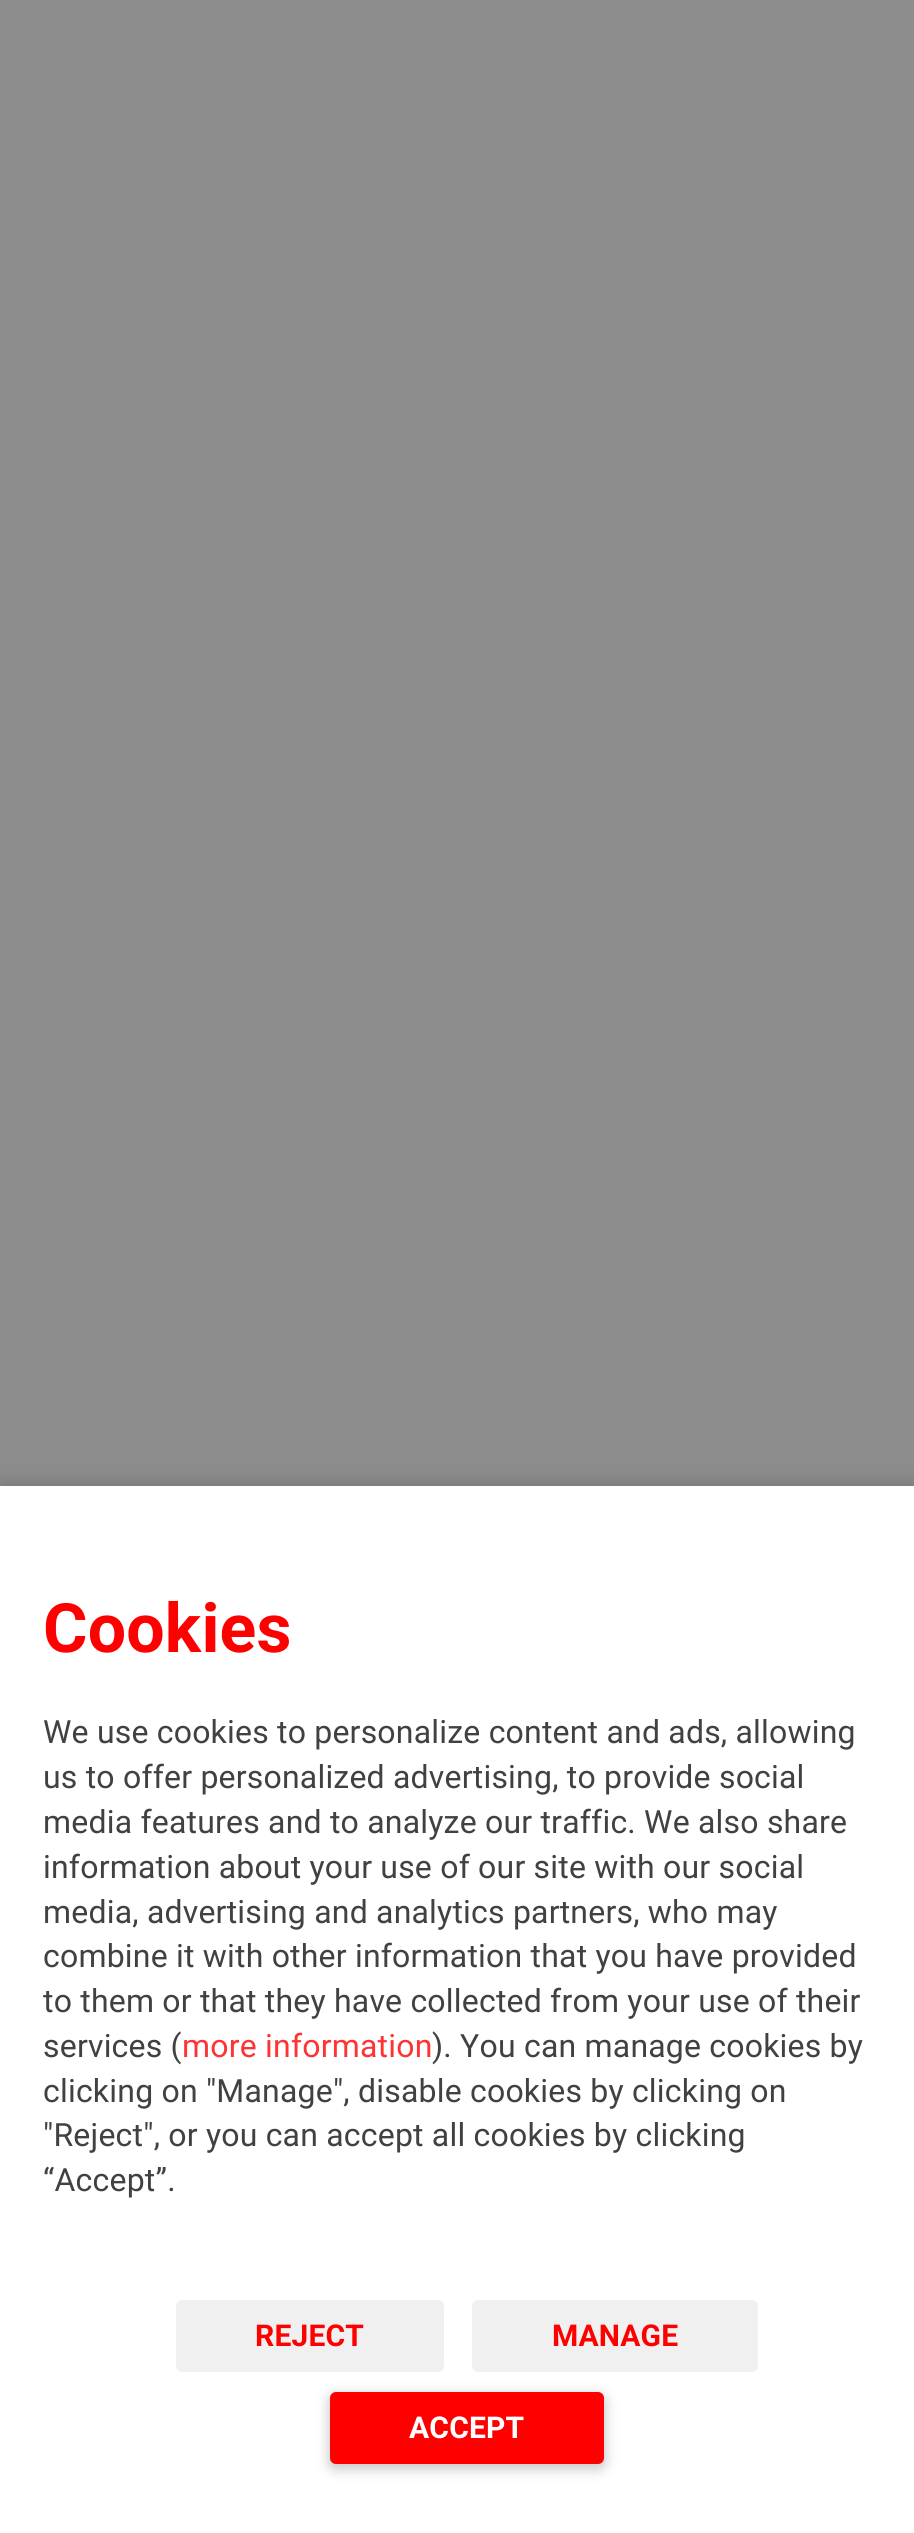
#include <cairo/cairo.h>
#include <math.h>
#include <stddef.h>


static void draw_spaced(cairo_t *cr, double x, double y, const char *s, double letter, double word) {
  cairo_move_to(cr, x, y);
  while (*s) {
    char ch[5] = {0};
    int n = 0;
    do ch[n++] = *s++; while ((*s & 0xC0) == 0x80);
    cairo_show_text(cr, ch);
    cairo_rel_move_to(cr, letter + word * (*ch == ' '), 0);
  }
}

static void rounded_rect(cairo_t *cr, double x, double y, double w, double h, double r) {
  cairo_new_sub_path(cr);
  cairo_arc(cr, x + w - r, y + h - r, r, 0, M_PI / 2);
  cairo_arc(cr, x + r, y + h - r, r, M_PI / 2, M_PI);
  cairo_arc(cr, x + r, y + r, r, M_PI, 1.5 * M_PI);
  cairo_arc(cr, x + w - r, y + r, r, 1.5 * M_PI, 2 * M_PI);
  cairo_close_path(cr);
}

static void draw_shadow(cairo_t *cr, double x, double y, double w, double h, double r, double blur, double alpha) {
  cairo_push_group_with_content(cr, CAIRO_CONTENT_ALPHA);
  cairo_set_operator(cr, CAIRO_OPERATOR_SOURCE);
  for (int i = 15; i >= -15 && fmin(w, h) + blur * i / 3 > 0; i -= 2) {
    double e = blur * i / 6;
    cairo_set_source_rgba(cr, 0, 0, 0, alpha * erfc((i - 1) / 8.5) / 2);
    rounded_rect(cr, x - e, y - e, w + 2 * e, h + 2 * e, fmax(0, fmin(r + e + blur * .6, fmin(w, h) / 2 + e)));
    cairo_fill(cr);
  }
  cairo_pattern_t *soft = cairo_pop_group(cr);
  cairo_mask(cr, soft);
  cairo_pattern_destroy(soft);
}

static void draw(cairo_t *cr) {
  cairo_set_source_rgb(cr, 140 / 255.0, 140 / 255.0, 140 / 255.0);
  cairo_paint(cr);
  cairo_set_source_rgb(cr, 0, 0, 0);
  draw_shadow(cr, 0, 1486, 914, 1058, 0, 10, 0.2);
  cairo_set_source_rgb(cr, 1, 1, 1);
  cairo_rectangle(cr, 0, 1486, 914, 1047);
  cairo_fill(cr);
  cairo_set_source_rgb(cr, 240 / 255.0, 240 / 255.0, 240 / 255.0);
  rounded_rect(cr, 176, 2300, 268, 72, 6);
  cairo_fill(cr);
  rounded_rect(cr, 472, 2300, 286, 72, 6);
  cairo_fill(cr);
  cairo_set_source_rgb(cr, 0, 0, 0);
  draw_shadow(cr, 328, 2394, 278, 76, 8, 6, 0.2);
  cairo_set_source_rgb(cr, 1, 0, 0);
  rounded_rect(cr, 330, 2392, 274, 72, 6);
  cairo_fill(cr);
  cairo_select_font_face(cr, "Roboto", CAIRO_FONT_SLANT_NORMAL, CAIRO_FONT_WEIGHT_BOLD);
  cairo_set_font_size(cr, 68);
  draw_spaced(cr, 43, 1652, "Cookies", 0.2, 0);
  cairo_select_font_face(cr, "Roboto", CAIRO_FONT_SLANT_NORMAL, CAIRO_FONT_WEIGHT_NORMAL);
  cairo_set_font_size(cr, 32);
  cairo_set_source_rgb(cr, 65 / 255.0, 65 / 255.0, 65 / 255.0);
  draw_spaced(cr, 43, 1743, "We use cookies to personalize content and ads, allowing", 0.2, 0);
  draw_spaced(cr, 43, 1788, "us to offer personalized advertising, to provide social", 0.2, 0);
  draw_spaced(cr, 43, 1833, "media features and to analyze our traffic. We also share", 0.2, 0);
  draw_spaced(cr, 43, 1878, "information about your use of our site with our social", 0.2, 0);
  draw_spaced(cr, 43, 1923, "media, advertising and analytics partners, who may", 0.2, 0);
  draw_spaced(cr, 43, 1967, "combine it with other information that you have provided", 0.2, 0);
  draw_spaced(cr, 43, 2012, "to them or that they have collected from your use of their", 0.2, 0);
  draw_spaced(cr, 43, 2057, "services (", 0.2, 0);
  cairo_set_source_rgb(cr, 1, 51 / 255.0, 51 / 255.0);
  draw_spaced(cr, 182, 2057, "more information", 0.2, 0);
  cairo_set_source_rgb(cr, 65 / 255.0, 65 / 255.0, 65 / 255.0);
  draw_spaced(cr, 432, 2057, "). You can manage cookies by", 0.2, 0);
  draw_spaced(cr, 43, 2102, "clicking on \"Manage\", disable cookies by clicking on", 0.2, 0);
  draw_spaced(cr, 43, 2146, "\"Reject\", or you can accept all cookies by clicking", 0.2, 0);
  draw_spaced(cr, 43, 2191, "“Accept”.", 0.2, 0);
  cairo_select_font_face(cr, "Roboto", CAIRO_FONT_SLANT_NORMAL, CAIRO_FONT_WEIGHT_BOLD);
  cairo_set_font_size(cr, 30);
  cairo_set_source_rgb(cr, 1, 0, 0);
  draw_spaced(cr, 255, 2346, "REJECT", 0.2, 0);
  draw_spaced(cr, 552, 2346, "MANAGE", 0.2, 0);
  cairo_set_source_rgb(cr, 1, 1, 1);
  draw_spaced(cr, 409, 2438, "ACCEPT", 0.2, 0);
}

int main(void) {
  cairo_surface_t *surface = cairo_image_surface_create(CAIRO_FORMAT_RGB24, 914, 2533);
  cairo_t *cr = cairo_create(surface);
  cairo_font_options_t *options = cairo_font_options_create();
  cairo_font_options_set_hint_metrics(options, CAIRO_HINT_METRICS_OFF);
  cairo_font_options_set_hint_style(options, CAIRO_HINT_STYLE_NONE);
  cairo_set_font_options(cr, options);
  cairo_set_miter_limit(cr, 4);
  draw(cr);
  cairo_surface_write_to_png(surface, "out.png");
  cairo_font_options_destroy(options);
  cairo_destroy(cr);
  cairo_surface_destroy(surface);
  return 0;
}
